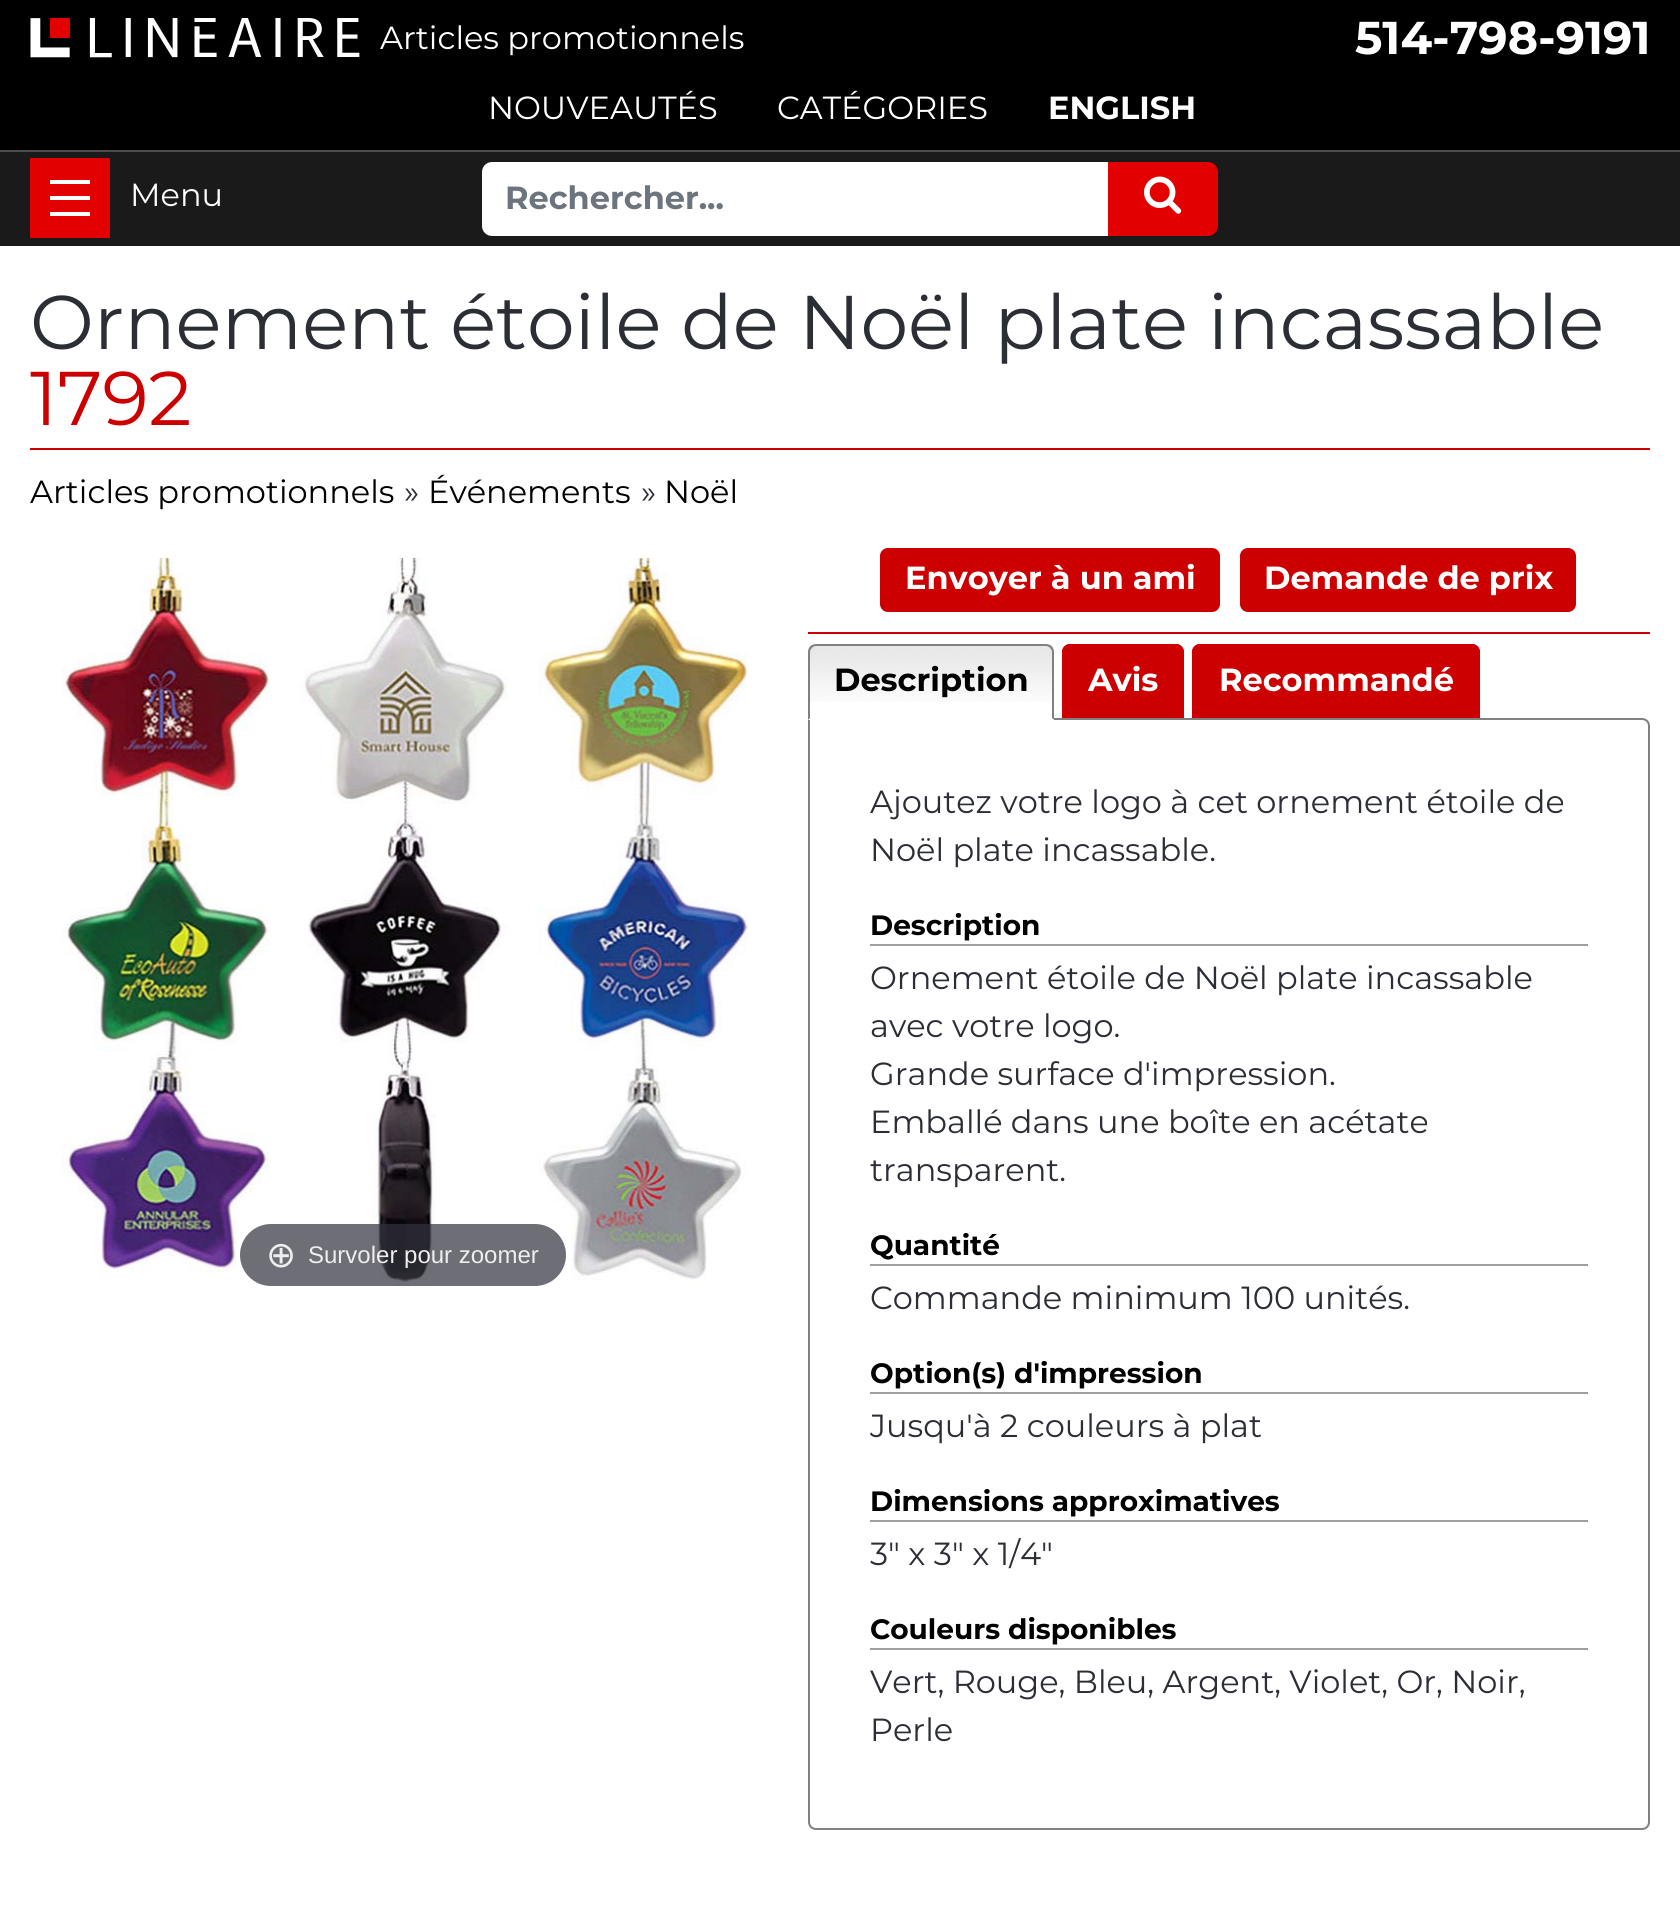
import math
import cairo

surface = cairo.ImageSurface(cairo.FORMAT_RGB24, 1680, 1907)
ctx = cairo.Context(surface)
options = cairo.FontOptions()
options.set_hint_metrics(cairo.HINT_METRICS_OFF)
options.set_hint_style(cairo.HINT_STYLE_NONE)
ctx.set_font_options(options)
ctx.set_miter_limit(4)


def round_rect(x, y, w, h, r):
    ctx.new_sub_path()
    for i, (u, v) in enumerate([(x + w - r, y + h - r), (x + r, y + h - r), (x + r, y + r), (x + w - r, y + r)]):
        ctx.arc(u, v, r, i * math.pi / 2, (i + 1) * math.pi / 2)
    ctx.close_path()


def picture(path, x, y, w, h):
    ctx.save()
    ctx.set_source_surface(cairo.ImageSurface.create_from_png(path), x, y)
    ctx.rectangle(x, y, w, h)
    ctx.fill()
    ctx.restore()


ctx.set_source_rgb(1, 1, 1)
ctx.paint()
ctx.set_source_rgb(0.102, 0.102, 0.102)
ctx.rectangle(0, 152, 1680, 94)
ctx.fill()
ctx.set_source_rgb(0, 0, 0)
ctx.rectangle(0, 0, 1680, 150)
ctx.fill()
ctx.set_source_rgb(0.302, 0.302, 0.302)
ctx.rectangle(0, 150, 1680, 2)
ctx.fill()
picture("img1.png", 30, 18, 330, 40)
ctx.select_font_face("Montserrat")
ctx.set_font_size(32)
ctx.set_source_rgb(1, 1, 1)
ctx.move_to(380, 49)
ctx.show_text("Articles promotionnels")
ctx.select_font_face("Montserrat", cairo.FONT_SLANT_NORMAL, cairo.FONT_WEIGHT_BOLD)
ctx.set_font_size(46)
ctx.move_to(1355, 54)
ctx.show_text("514-798-9191")
ctx.select_font_face("Montserrat")
ctx.set_font_size(32)
ctx.move_to(488, 119)
ctx.show_text("NOUVEAUTÉS")
ctx.move_to(777, 119)
ctx.show_text("CATÉGORIES")
ctx.select_font_face("Montserrat", cairo.FONT_SLANT_NORMAL, cairo.FONT_WEIGHT_BOLD)
ctx.move_to(1048, 119)
ctx.show_text("ENGLISH")
ctx.set_source_rgb(0.886, 0, 0)
ctx.rectangle(30, 158, 80, 80)
ctx.fill()
ctx.set_source_rgb(1, 1, 1)
ctx.rectangle(50, 196, 40, 4)
ctx.fill()
ctx.rectangle(50, 180, 40, 4)
ctx.fill()
ctx.rectangle(50, 212, 40, 4)
ctx.fill()
ctx.select_font_face("Montserrat")
ctx.move_to(130, 206)
ctx.show_text("Menu")
ctx.new_path()
ctx.move_to(492, 162)
ctx.line_to(1110, 162)
ctx.line_to(1110, 236)
ctx.line_to(492, 236)
ctx.curve_to(486.5, 236, 482, 231.5, 482, 226)
ctx.line_to(482, 172)
ctx.curve_to(482, 166.5, 486.5, 162, 492, 162)
ctx.close_path()
ctx.fill()
ctx.select_font_face("Montserrat", cairo.FONT_SLANT_NORMAL, cairo.FONT_WEIGHT_BOLD)
ctx.set_source_rgb(0.424, 0.459, 0.49)
ctx.move_to(505, 209)
ctx.show_text("Rechercher...")
ctx.set_source_rgb(0.886, 0, 0)
ctx.new_path()
ctx.move_to(1108, 162)
ctx.line_to(1208, 162)
ctx.curve_to(1213.5, 162, 1218, 166.5, 1218, 172)
ctx.line_to(1218, 226)
ctx.curve_to(1218, 231.5, 1213.5, 236, 1208, 236)
ctx.line_to(1108, 236)
ctx.close_path()
ctx.fill()
picture("img2.png", 1144, 176, 38, 38)
ctx.set_source_rgb(0.8, 0, 0)
ctx.rectangle(30, 448, 1620, 2)
ctx.fill()
ctx.select_font_face("Montserrat")
ctx.set_font_size(76)
ctx.set_source_rgb(0.173, 0.18, 0.208)
ctx.move_to(30, 349)
ctx.show_text("Ornement étoile de Noël plate incassable")
ctx.set_source_rgb(0.8, 0, 0)
ctx.move_to(30, 425)
ctx.show_text("1792")
ctx.set_font_size(32)
ctx.set_source_rgb(0, 0, 0)
ctx.move_to(30, 503)
ctx.show_text("Articles promotionnels")
ctx.set_source_rgb(0.173, 0.18, 0.208)
ctx.move_to(404, 503)
ctx.show_text("»")
ctx.set_source_rgb(0, 0, 0)
ctx.move_to(428, 503)
ctx.show_text("Événements")
ctx.set_source_rgb(0.173, 0.18, 0.208)
ctx.move_to(641, 503)
ctx.show_text("»")
ctx.set_source_rgb(0, 0, 0)
ctx.move_to(664, 503)
ctx.show_text("Noël")
ctx.set_source_rgb(0.8, 0, 0)
round_rect(880, 548, 340, 64, 8)
ctx.fill()
ctx.select_font_face("Montserrat", cairo.FONT_SLANT_NORMAL, cairo.FONT_WEIGHT_BOLD)
ctx.set_source_rgb(1, 1, 1)
ctx.move_to(905, 589)
ctx.show_text("Envoyer à un ami")
ctx.set_source_rgb(0.8, 0, 0)
round_rect(1240, 548, 336, 64, 8)
ctx.fill()
ctx.set_source_rgb(1, 1, 1)
ctx.move_to(1264, 589)
ctx.show_text("Demande de prix")
picture("img3.png", 61, 558, 688, 730)
ctx.set_source_rgba(0.192, 0.2, 0.239, 0.7)
round_rect(240, 1224, 326, 62, 31)
ctx.fill()
ctx.select_font_face("DejaVu Sans")
ctx.set_font_size(36)
ctx.set_source_rgb(0.933, 0.933, 0.933)
ctx.move_to(266, 1267)
ctx.show_text("⊕")
ctx.select_font_face("Liberation Sans")
ctx.set_font_size(24)
ctx.move_to(308, 1263)
ctx.show_text("Survoler pour zoomer")
ctx.set_source_rgb(0.8, 0, 0)
ctx.rectangle(808, 632, 842, 2)
ctx.fill()
ctx.new_path()
ctx.move_to(809, 719)
ctx.line_to(1642, 719)
ctx.curve_to(1646, 719, 1649, 722, 1649, 726)
ctx.line_to(1649, 1822)
ctx.curve_to(1649, 1826, 1646, 1829, 1642, 1829)
ctx.line_to(816, 1829)
ctx.curve_to(812, 1829, 809, 1826, 809, 1822)
ctx.close_path()
ctx.set_source_rgb(0.502, 0.502, 0.502)
ctx.stroke()
ctx.set_source_rgb(1, 1, 1)
ctx.new_path()
ctx.move_to(816, 644)
ctx.line_to(1046, 644)
ctx.curve_to(1050.5, 644, 1054, 647.5, 1054, 652)
ctx.line_to(1054, 720)
ctx.line_to(808, 720)
ctx.line_to(808, 652)
ctx.curve_to(808, 647.5, 811.5, 644, 816, 644)
ctx.close_path()
ctx.fill()
picture("img4.png", 808, 646, 246, 56)
ctx.set_source_rgb(0.502, 0.502, 0.502)
ctx.new_path()
ctx.move_to(816, 644)
ctx.curve_to(814, 644, 812, 645, 810, 646)
ctx.line_to(812, 648)
ctx.curve_to(813, 647, 814, 646, 816, 646)
ctx.line_to(1046, 646)
ctx.curve_to(1048, 646, 1049, 647, 1050, 648)
ctx.line_to(1052, 646)
ctx.curve_to(1050, 645, 1048, 644, 1046, 644)
ctx.close_path()
ctx.fill()
ctx.new_path()
ctx.move_to(1054, 720)
ctx.line_to(1054, 652)
ctx.curve_to(1054, 650, 1053, 648, 1052, 646)
ctx.line_to(1050, 648)
ctx.curve_to(1051, 649, 1052, 650, 1052, 652)
ctx.line_to(1052, 718)
ctx.close_path()
ctx.fill()
ctx.set_source_rgb(1, 1, 1)
ctx.new_path()
ctx.move_to(1054, 720)
ctx.line_to(1052, 718)
ctx.line_to(810, 718)
ctx.line_to(808, 720)
ctx.close_path()
ctx.fill()
ctx.set_source_rgb(0.502, 0.502, 0.502)
ctx.new_path()
ctx.move_to(808, 720)
ctx.line_to(810, 718)
ctx.line_to(810, 652)
ctx.curve_to(810, 650, 811, 649, 812, 648)
ctx.line_to(810, 646)
ctx.curve_to(809, 648, 808, 650, 808, 652)
ctx.close_path()
ctx.fill()
ctx.select_font_face("Montserrat", cairo.FONT_SLANT_NORMAL, cairo.FONT_WEIGHT_BOLD)
ctx.set_font_size(32)
ctx.set_source_rgb(0, 0, 0)
ctx.move_to(834, 691)
ctx.show_text("Description")
ctx.set_source_rgb(0.8, 0, 0)
ctx.new_path()
ctx.move_to(1070, 644)
ctx.line_to(1176, 644)
ctx.curve_to(1180.5, 644, 1184, 647.5, 1184, 652)
ctx.line_to(1184, 718)
ctx.line_to(1062, 718)
ctx.line_to(1062, 652)
ctx.curve_to(1062, 647.5, 1065.5, 644, 1070, 644)
ctx.close_path()
ctx.fill()
ctx.set_fill_rule(cairo.FILL_RULE_EVEN_ODD)
ctx.new_path()
ctx.move_to(1070, 644)
ctx.line_to(1176, 644)
ctx.curve_to(1180, 644, 1184, 648, 1184, 652)
ctx.line_to(1184, 718)
ctx.line_to(1062, 718)
ctx.line_to(1062, 652)
ctx.curve_to(1062, 648, 1066, 644, 1070, 644)
ctx.close_path()
ctx.move_to(1070, 646)
ctx.line_to(1176, 646)
ctx.curve_to(1179, 646, 1182, 649, 1182, 652)
ctx.line_to(1182, 718)
ctx.line_to(1064, 718)
ctx.line_to(1064, 652)
ctx.curve_to(1064, 649, 1067, 646, 1070, 646)
ctx.close_path()
ctx.fill()
ctx.set_source_rgb(1, 1, 1)
ctx.move_to(1088, 691)
ctx.show_text("Avis")
ctx.set_source_rgb(0.8, 0, 0)
ctx.new_path()
ctx.move_to(1200, 644)
ctx.line_to(1472, 644)
ctx.curve_to(1476.5, 644, 1480, 647.5, 1480, 652)
ctx.line_to(1480, 718)
ctx.line_to(1192, 718)
ctx.line_to(1192, 652)
ctx.curve_to(1192, 647.5, 1195.5, 644, 1200, 644)
ctx.close_path()
ctx.fill()
ctx.new_path()
ctx.move_to(1200, 644)
ctx.line_to(1472, 644)
ctx.curve_to(1476, 644, 1480, 648, 1480, 652)
ctx.line_to(1480, 718)
ctx.line_to(1192, 718)
ctx.line_to(1192, 652)
ctx.curve_to(1192, 648, 1196, 644, 1200, 644)
ctx.close_path()
ctx.move_to(1200, 646)
ctx.line_to(1472, 646)
ctx.curve_to(1475, 646, 1478, 649, 1478, 652)
ctx.line_to(1478, 718)
ctx.line_to(1194, 718)
ctx.line_to(1194, 652)
ctx.curve_to(1194, 649, 1197, 646, 1200, 646)
ctx.close_path()
ctx.fill()
ctx.set_source_rgb(1, 1, 1)
ctx.move_to(1219, 691)
ctx.show_text("Recommandé")
ctx.select_font_face("Montserrat")
ctx.set_source_rgb(0.173, 0.18, 0.208)
ctx.move_to(870, 813)
ctx.show_text("Ajoutez votre logo à cet ornement étoile de")
ctx.move_to(870, 861)
ctx.show_text("Noël plate incassable.")
ctx.set_source_rgb(0.624, 0.624, 0.624)
ctx.rectangle(870, 944, 718, 2)
ctx.fill()
ctx.select_font_face("Montserrat", cairo.FONT_SLANT_NORMAL, cairo.FONT_WEIGHT_BOLD)
ctx.set_font_size(28)
ctx.set_source_rgb(0, 0, 0)
ctx.move_to(870, 935)
ctx.show_text("Description")
ctx.select_font_face("Montserrat")
ctx.set_font_size(32)
ctx.set_source_rgb(0.173, 0.18, 0.208)
ctx.move_to(870, 989)
ctx.show_text("Ornement étoile de Noël plate incassable")
ctx.move_to(870, 1037)
ctx.show_text("avec votre logo.")
ctx.move_to(870, 1085)
ctx.show_text("Grande surface d'impression.")
ctx.move_to(870, 1133)
ctx.show_text("Emballé dans une boîte en acétate")
ctx.move_to(870, 1181)
ctx.show_text("transparent.")
ctx.set_source_rgb(0.624, 0.624, 0.624)
ctx.rectangle(870, 1264, 718, 2)
ctx.fill()
ctx.select_font_face("Montserrat", cairo.FONT_SLANT_NORMAL, cairo.FONT_WEIGHT_BOLD)
ctx.set_font_size(28)
ctx.set_source_rgb(0, 0, 0)
ctx.move_to(870, 1255)
ctx.show_text("Quantité")
ctx.select_font_face("Montserrat")
ctx.set_font_size(32)
ctx.set_source_rgb(0.173, 0.18, 0.208)
ctx.move_to(870, 1309)
ctx.show_text("Commande minimum 100 unités.")
ctx.set_source_rgb(0.624, 0.624, 0.624)
ctx.rectangle(870, 1392, 718, 2)
ctx.fill()
ctx.select_font_face("Montserrat", cairo.FONT_SLANT_NORMAL, cairo.FONT_WEIGHT_BOLD)
ctx.set_font_size(28)
ctx.set_source_rgb(0, 0, 0)
ctx.move_to(870, 1383)
ctx.show_text("Option(s) d'impression")
ctx.select_font_face("Montserrat")
ctx.set_font_size(32)
ctx.set_source_rgb(0.173, 0.18, 0.208)
ctx.move_to(870, 1437)
ctx.show_text("Jusqu'à 2 couleurs à plat")
ctx.set_source_rgb(0.624, 0.624, 0.624)
ctx.rectangle(870, 1520, 718, 2)
ctx.fill()
ctx.select_font_face("Montserrat", cairo.FONT_SLANT_NORMAL, cairo.FONT_WEIGHT_BOLD)
ctx.set_font_size(28)
ctx.set_source_rgb(0, 0, 0)
ctx.move_to(870, 1511)
ctx.show_text("Dimensions approximatives")
ctx.select_font_face("Montserrat")
ctx.set_font_size(32)
ctx.set_source_rgb(0.173, 0.18, 0.208)
ctx.move_to(870, 1565)
ctx.show_text("3\" x 3\" x 1/4\"")
ctx.set_source_rgb(0.624, 0.624, 0.624)
ctx.rectangle(870, 1648, 718, 2)
ctx.fill()
ctx.select_font_face("Montserrat", cairo.FONT_SLANT_NORMAL, cairo.FONT_WEIGHT_BOLD)
ctx.set_font_size(28)
ctx.set_source_rgb(0, 0, 0)
ctx.move_to(870, 1639)
ctx.show_text("Couleurs disponibles")
ctx.select_font_face("Montserrat")
ctx.set_font_size(32)
ctx.set_source_rgb(0.173, 0.18, 0.208)
ctx.move_to(870, 1693)
ctx.show_text("Vert, Rouge, Bleu, Argent, Violet, Or, Noir,")
ctx.move_to(870, 1741)
ctx.show_text("Perle")
surface.write_to_png("page.png")
